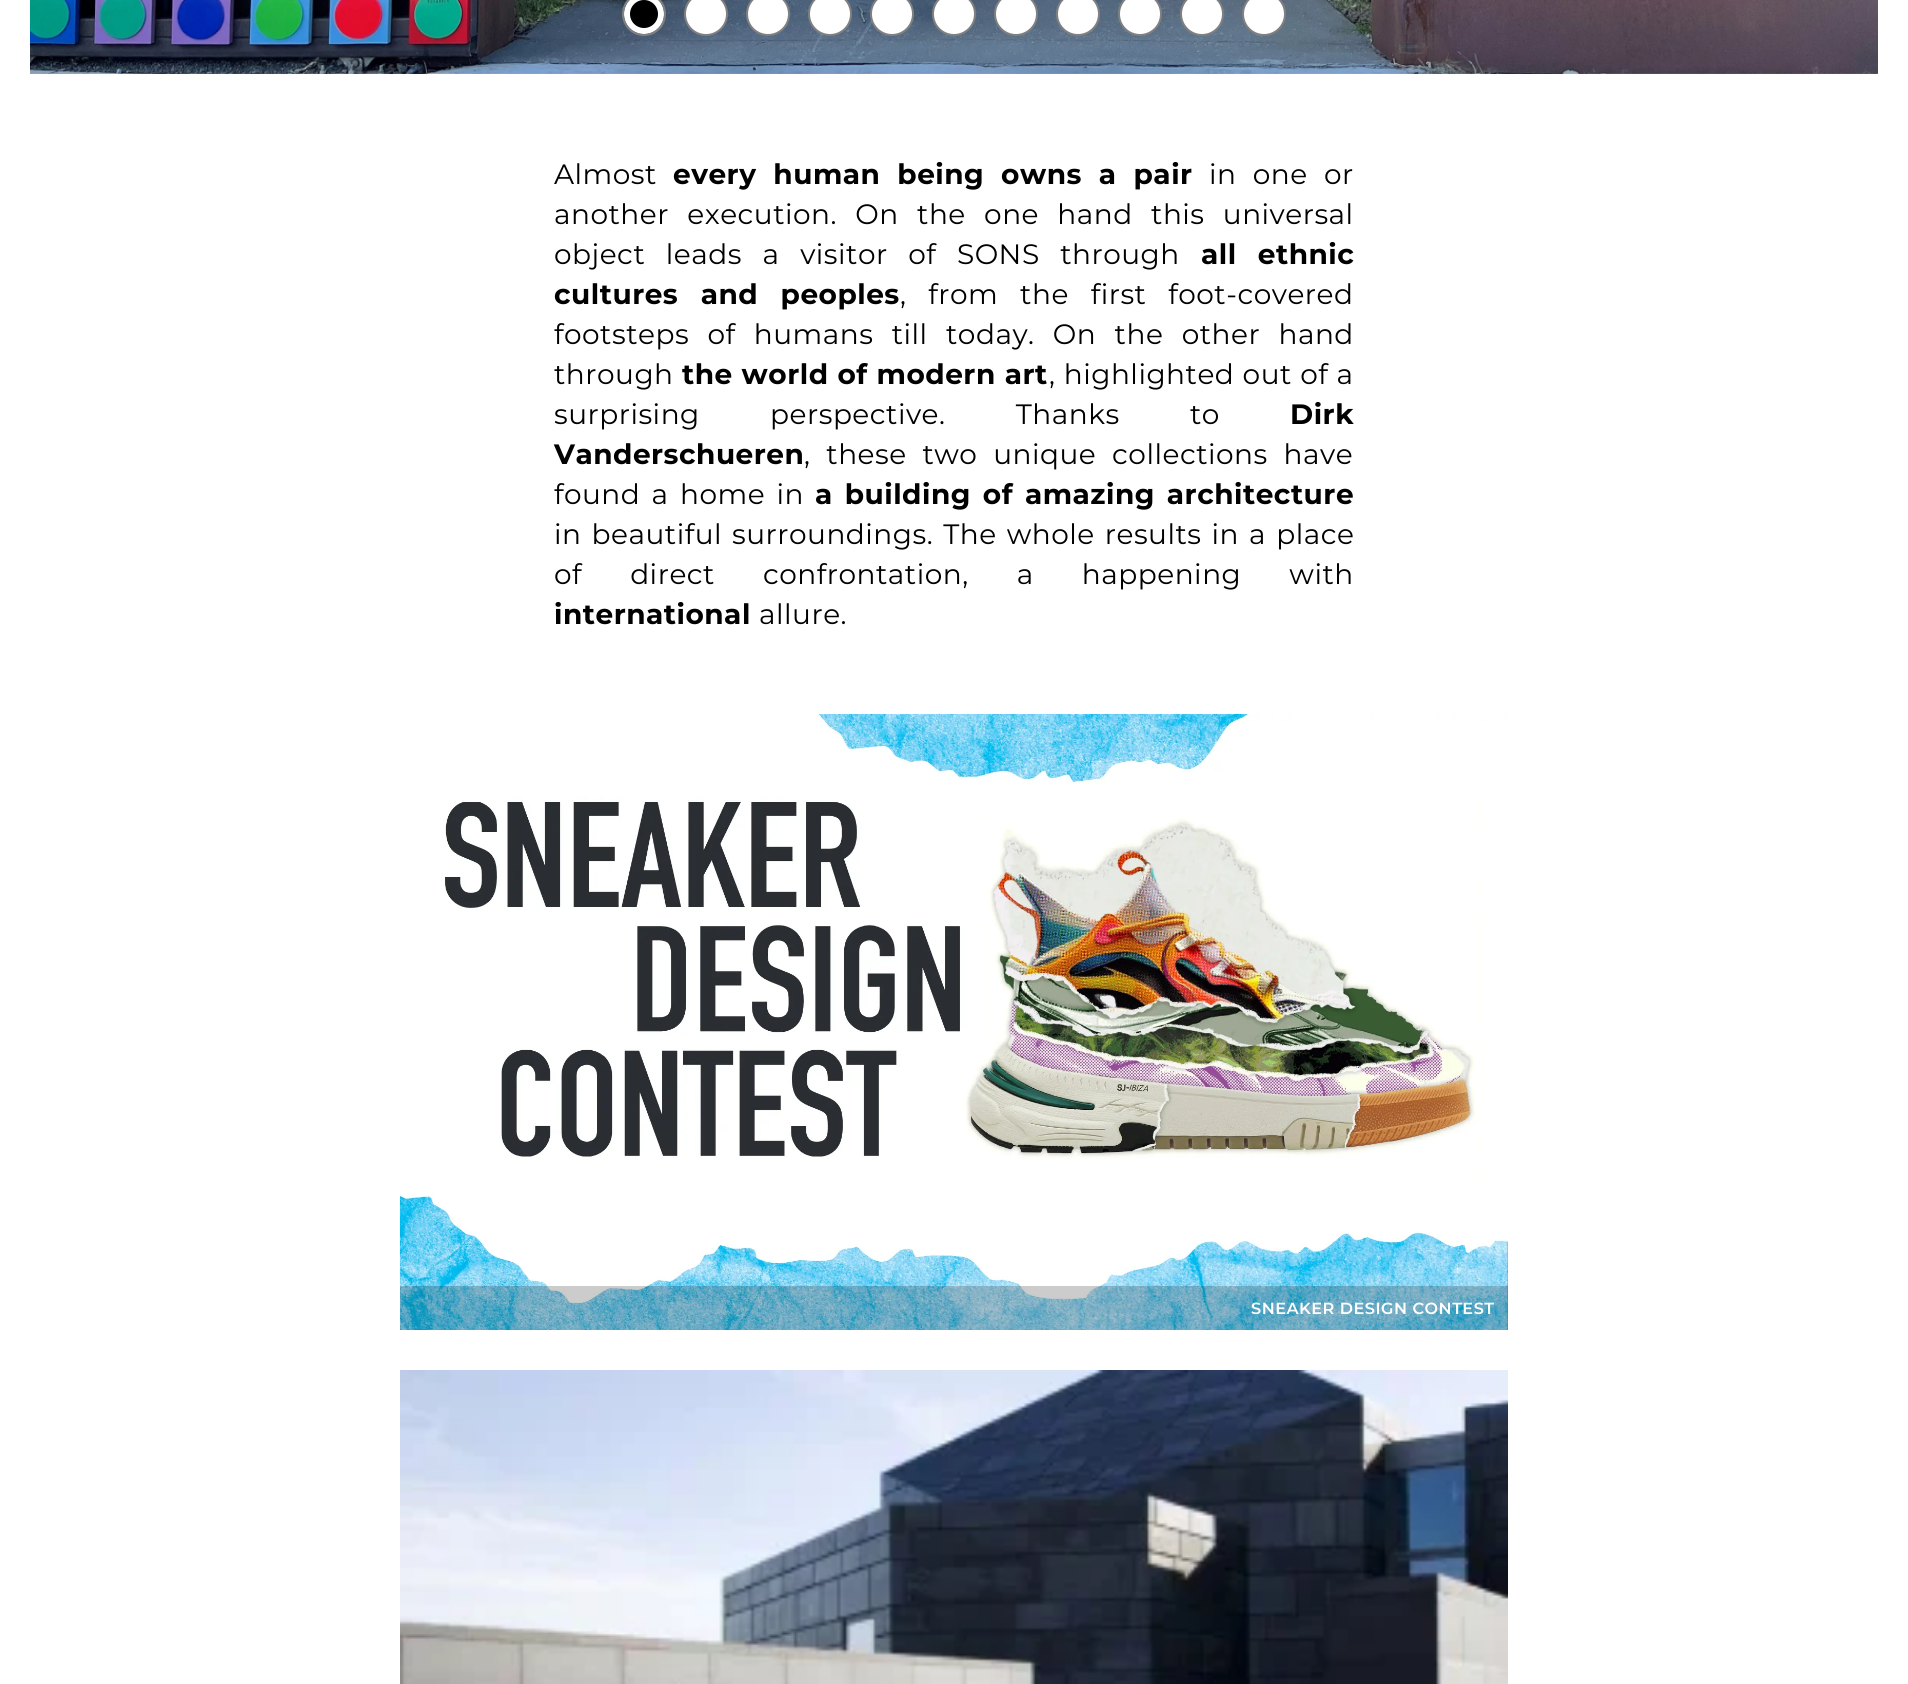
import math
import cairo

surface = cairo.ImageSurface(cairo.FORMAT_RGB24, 1908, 1684)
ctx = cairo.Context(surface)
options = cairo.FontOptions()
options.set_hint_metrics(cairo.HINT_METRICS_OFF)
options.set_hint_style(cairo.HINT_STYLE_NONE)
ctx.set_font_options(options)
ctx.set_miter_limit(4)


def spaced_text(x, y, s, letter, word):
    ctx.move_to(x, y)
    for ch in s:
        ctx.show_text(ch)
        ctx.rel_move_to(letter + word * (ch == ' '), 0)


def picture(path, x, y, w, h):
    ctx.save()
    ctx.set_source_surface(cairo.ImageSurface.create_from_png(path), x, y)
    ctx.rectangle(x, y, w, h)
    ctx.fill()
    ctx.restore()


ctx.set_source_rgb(1, 1, 1)
ctx.paint()
picture("img1.png", 30, 0, 1848, 74)
ctx.set_source_rgb(0, 0, 0)
ctx.arc(644, 14, 17, 0, 2 * math.pi)
ctx.fill_preserve()
ctx.set_source_rgb(1, 1, 1)
ctx.set_line_width(6)
ctx.stroke()
ctx.arc(644, 14, 21, 0, 2 * math.pi)
ctx.set_source_rgb(0.502, 0.502, 0.502)
ctx.set_line_width(2)
ctx.stroke()
ctx.set_source_rgb(1, 1, 1)
ctx.arc(706, 14, 21, 0, 2 * math.pi)
ctx.fill_preserve()
ctx.set_source_rgb(0.502, 0.502, 0.502)
ctx.stroke()
ctx.set_source_rgb(1, 1, 1)
ctx.arc(768, 14, 21, 0, 2 * math.pi)
ctx.fill_preserve()
ctx.set_source_rgb(0.502, 0.502, 0.502)
ctx.stroke()
ctx.set_source_rgb(1, 1, 1)
ctx.arc(830, 14, 21, 0, 2 * math.pi)
ctx.fill_preserve()
ctx.set_source_rgb(0.502, 0.502, 0.502)
ctx.stroke()
ctx.set_source_rgb(1, 1, 1)
ctx.arc(892, 14, 21, 0, 2 * math.pi)
ctx.fill_preserve()
ctx.set_source_rgb(0.502, 0.502, 0.502)
ctx.stroke()
ctx.set_source_rgb(1, 1, 1)
ctx.arc(954, 14, 21, 0, 2 * math.pi)
ctx.fill_preserve()
ctx.set_source_rgb(0.502, 0.502, 0.502)
ctx.stroke()
ctx.set_source_rgb(1, 1, 1)
ctx.arc(1016, 14, 21, 0, 2 * math.pi)
ctx.fill_preserve()
ctx.set_source_rgb(0.502, 0.502, 0.502)
ctx.stroke()
ctx.set_source_rgb(1, 1, 1)
ctx.arc(1078, 14, 21, 0, 2 * math.pi)
ctx.fill_preserve()
ctx.set_source_rgb(0.502, 0.502, 0.502)
ctx.stroke()
ctx.set_source_rgb(1, 1, 1)
ctx.arc(1140, 14, 21, 0, 2 * math.pi)
ctx.fill_preserve()
ctx.set_source_rgb(0.502, 0.502, 0.502)
ctx.stroke()
ctx.set_source_rgb(1, 1, 1)
ctx.arc(1202, 14, 21, 0, 2 * math.pi)
ctx.fill_preserve()
ctx.set_source_rgb(0.502, 0.502, 0.502)
ctx.stroke()
ctx.set_source_rgb(1, 1, 1)
ctx.arc(1264, 14, 21, 0, 2 * math.pi)
ctx.fill_preserve()
ctx.set_source_rgb(0.502, 0.502, 0.502)
ctx.stroke()
ctx.select_font_face("Montserrat")
ctx.set_font_size(28)
ctx.set_source_rgb(0, 0, 0)
spaced_text(554, 184, "Almost", 0.5, 0)
ctx.select_font_face("Montserrat", cairo.FONT_SLANT_NORMAL, cairo.FONT_WEIGHT_BOLD)
spaced_text(673, 184, "every human being owns a pair", 0.5, 8.5)
ctx.select_font_face("Montserrat")
spaced_text(1209, 184, "in one or", 0.5, 8.5)
spaced_text(554, 224, "another execution. On the one hand this universal", 0.5, 10.5)
spaced_text(554, 264, "object leads a visitor of SONS through", 0.5, 12.75)
ctx.select_font_face("Montserrat", cairo.FONT_SLANT_NORMAL, cairo.FONT_WEIGHT_BOLD)
spaced_text(1201, 264, "all ethnic", 0.5, 12.75)
spaced_text(554, 304, "cultures and peoples", 0.5, 14)
ctx.select_font_face("Montserrat")
spaced_text(900, 304, ", from the first foot-covered", 0.5, 14)
spaced_text(554, 344, "footsteps of humans till today. On the other hand", 0.5, 10.5)
spaced_text(554, 384, "through", 0.5, 0)
ctx.select_font_face("Montserrat", cairo.FONT_SLANT_NORMAL, cairo.FONT_WEIGHT_BOLD)
spaced_text(682, 384, "the world of modern art", 0.5, 0.5)
ctx.select_font_face("Montserrat")
spaced_text(1049, 384, ", highlighted out of a", 0.5, 0.5)
spaced_text(554, 424, "surprising perspective. Thanks to", 0.5, 62.5)
ctx.select_font_face("Montserrat", cairo.FONT_SLANT_NORMAL, cairo.FONT_WEIGHT_BOLD)
spaced_text(1290, 424, "Dirk", 0.5, 0)
spaced_text(554, 464, "Vanderschueren", 0.5, 0)
ctx.select_font_face("Montserrat")
spaced_text(804, 464, ", these two unique collections have", 0.5, 8)
spaced_text(554, 504, "found a home in", 0.5, 3.5)
ctx.select_font_face("Montserrat", cairo.FONT_SLANT_NORMAL, cairo.FONT_WEIGHT_BOLD)
spaced_text(815, 504, "a building of amazing architecture", 0.5, 3.5)
ctx.select_font_face("Montserrat")
spaced_text(554, 544, "in beautiful surroundings. The whole results in a place", 0.5, 2.25)
spaced_text(554, 584, "of direct confrontation, a happening with", 0.5, 40.25)
ctx.select_font_face("Montserrat", cairo.FONT_SLANT_NORMAL, cairo.FONT_WEIGHT_BOLD)
spaced_text(554, 624, "international", 0.5, 0)
ctx.select_font_face("Montserrat")
spaced_text(759, 624, "allure.", 0.5, 0)
picture("img2.png", 400, 714, 1108, 616)
ctx.set_source_rgba(0, 0, 0, 0.2)
ctx.rectangle(400, 1286, 1108, 44)
ctx.fill()
ctx.select_font_face("Montserrat SemiBold")
ctx.set_font_size(16.1)
ctx.set_source_rgb(1, 1, 1)
spaced_text(1251, 1314, "SNEAKER DESIGN CONTEST", 0.5, 0)
picture("img3.png", 400, 1370, 1108, 314)
surface.write_to_png("page.png")
